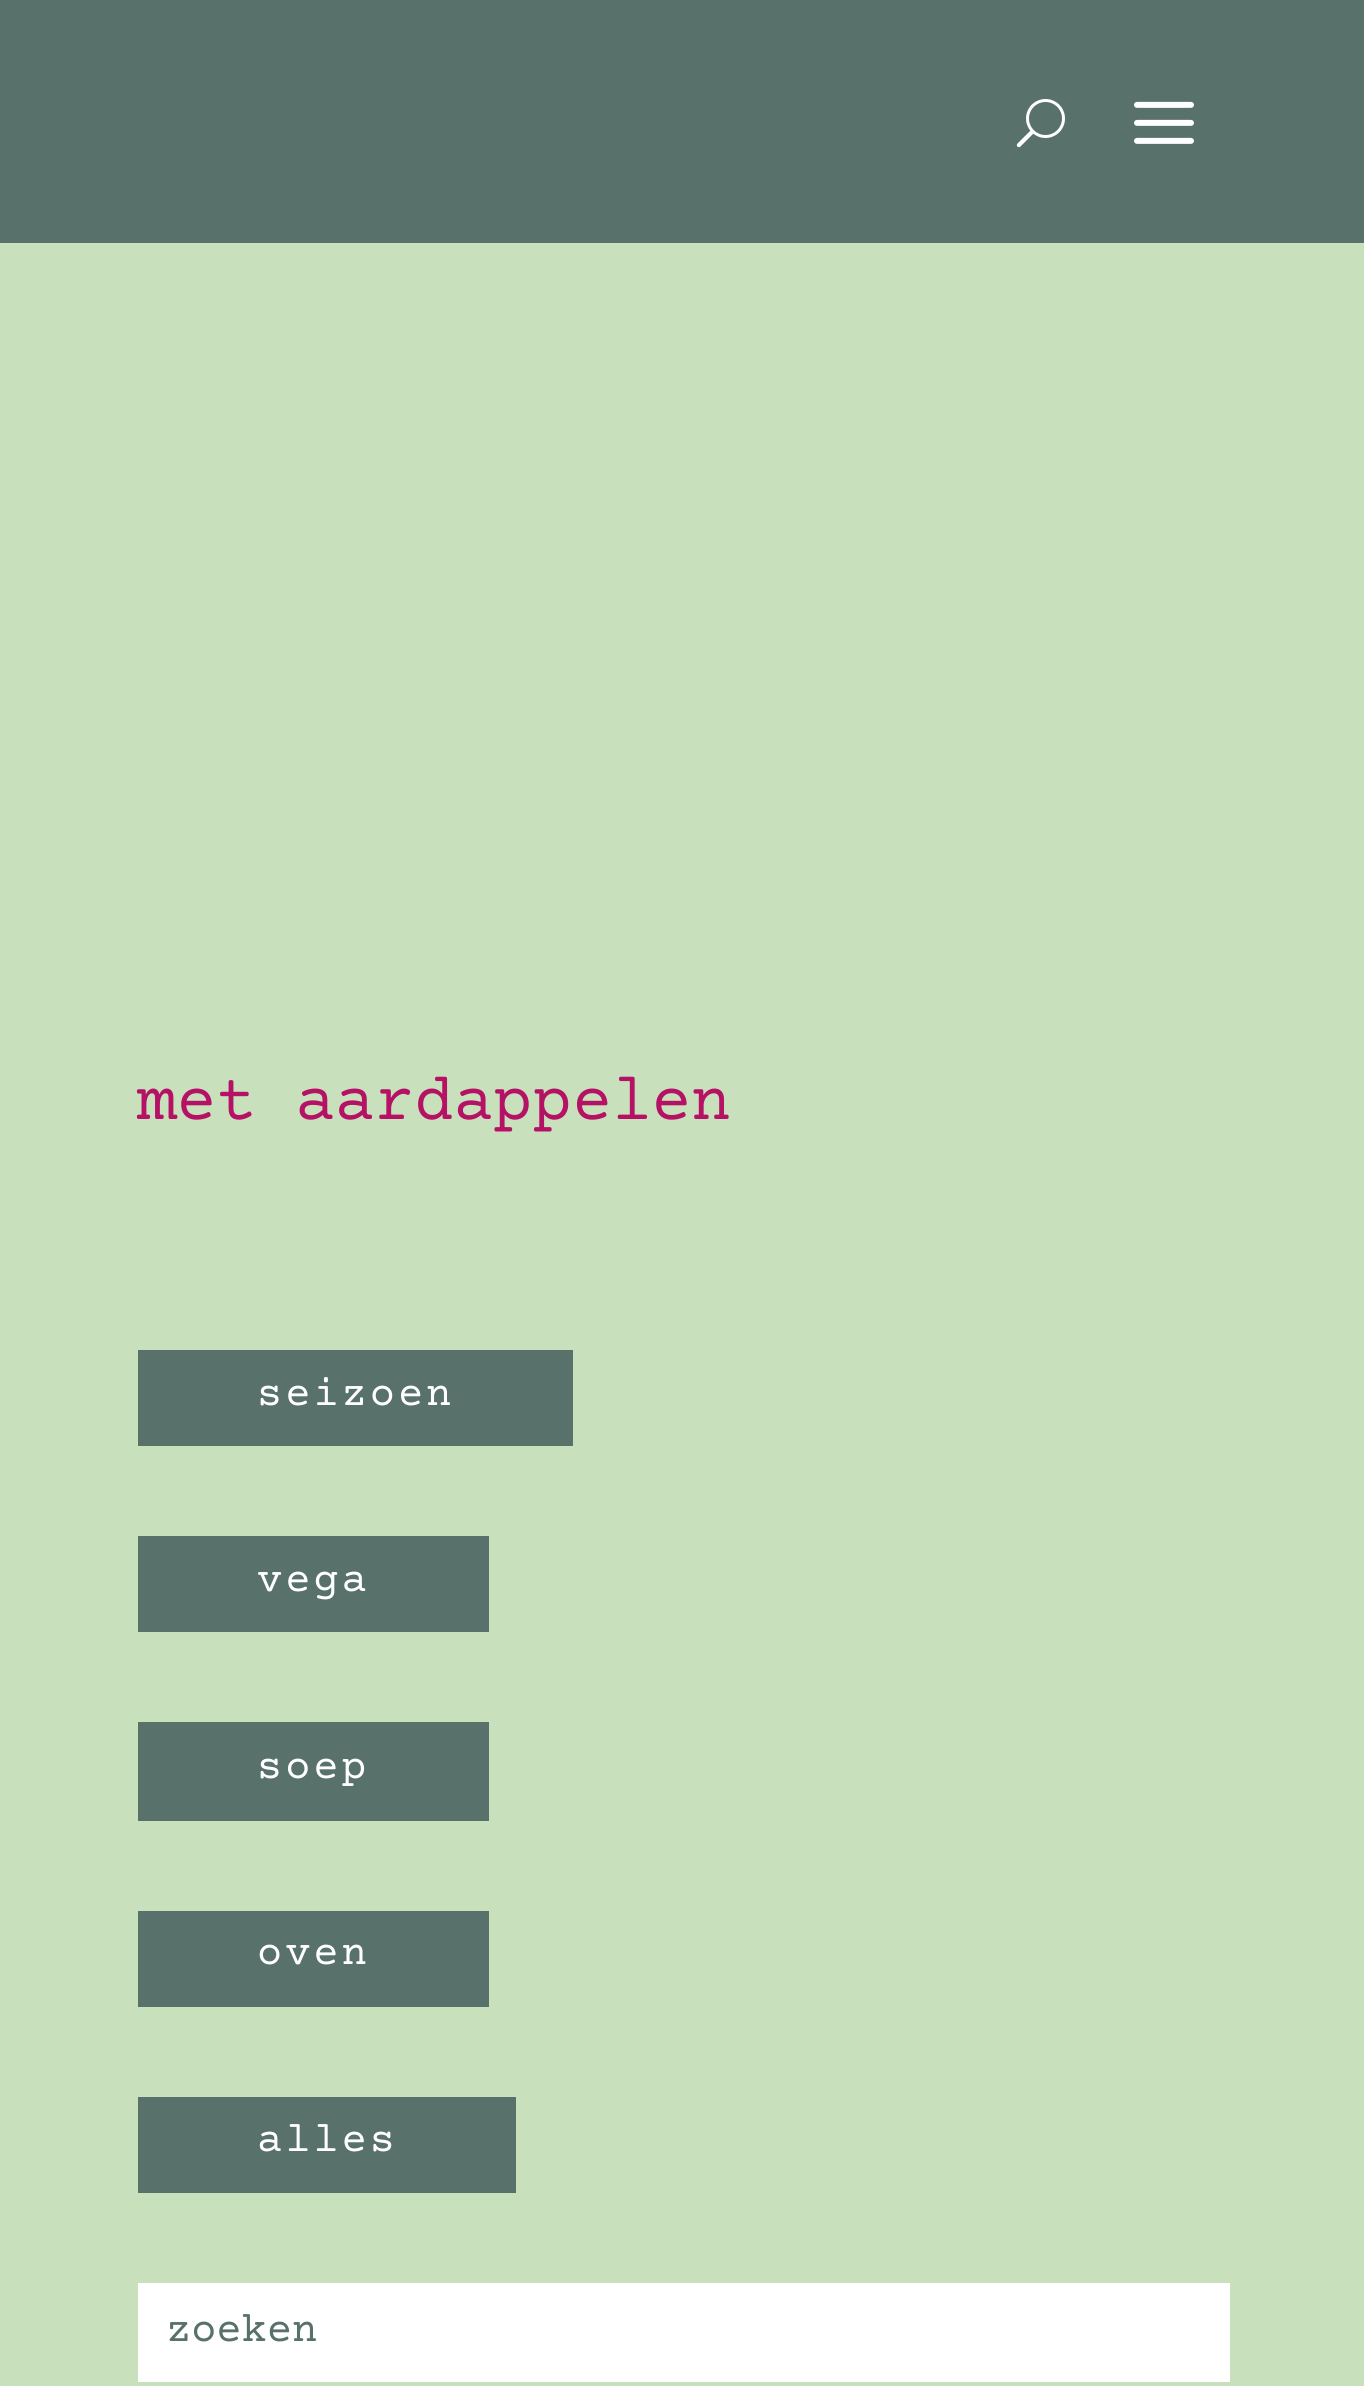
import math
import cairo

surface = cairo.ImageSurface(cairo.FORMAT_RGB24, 1364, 2386)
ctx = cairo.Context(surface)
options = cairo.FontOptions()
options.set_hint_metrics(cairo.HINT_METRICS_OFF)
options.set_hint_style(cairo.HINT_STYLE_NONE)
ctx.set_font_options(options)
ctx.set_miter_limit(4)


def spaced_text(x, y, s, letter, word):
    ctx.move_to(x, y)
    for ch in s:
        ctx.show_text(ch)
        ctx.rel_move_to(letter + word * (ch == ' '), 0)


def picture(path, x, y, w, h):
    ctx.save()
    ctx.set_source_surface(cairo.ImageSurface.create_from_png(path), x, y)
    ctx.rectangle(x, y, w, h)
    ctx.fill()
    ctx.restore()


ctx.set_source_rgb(0.784, 0.882, 0.737)
ctx.paint()
ctx.set_source_rgb(0.345, 0.443, 0.42)
ctx.rectangle(0, 0, 1364, 243)
ctx.fill()
picture("img1.png", 1016, 99, 49, 49)
picture("img2.png", 1134, 101, 60, 43)
ctx.select_font_face("Courier Prime")
ctx.set_font_size(66)
ctx.set_source_rgb(0.71, 0.067, 0.396)
ctx.move_to(137, 1119)
ctx.show_text("met aardappelen")
ctx.set_source_rgb(0.345, 0.443, 0.42)
ctx.rectangle(138, 1350, 435, 96)
ctx.fill()
ctx.set_font_size(42)
ctx.set_source_rgb(1, 1, 1)
spaced_text(257, 1405, "seizoen", 3, 0)
ctx.set_source_rgb(0.345, 0.443, 0.42)
ctx.rectangle(138, 1536, 351, 96)
ctx.fill()
ctx.set_source_rgb(1, 1, 1)
spaced_text(257, 1591, "vega", 3, 0)
ctx.set_source_rgb(0.345, 0.443, 0.42)
ctx.rectangle(138, 1722, 351, 99)
ctx.fill()
ctx.set_source_rgb(1, 1, 1)
spaced_text(257, 1778, "soep", 3, 0)
ctx.set_source_rgb(0.345, 0.443, 0.42)
ctx.rectangle(138, 1911, 351, 96)
ctx.fill()
ctx.set_source_rgb(1, 1, 1)
spaced_text(257, 1964, "oven", 3, 0)
ctx.set_source_rgb(0.345, 0.443, 0.42)
ctx.rectangle(138, 2097, 378, 96)
ctx.fill()
ctx.set_source_rgb(1, 1, 1)
spaced_text(257, 2151, "alles", 3, 0)
ctx.rectangle(138, 2283, 1092, 99)
ctx.fill()
ctx.set_source_rgb(0.345, 0.443, 0.42)
ctx.move_to(166, 2341)
ctx.show_text("zoeken")
surface.write_to_png("page.png")
